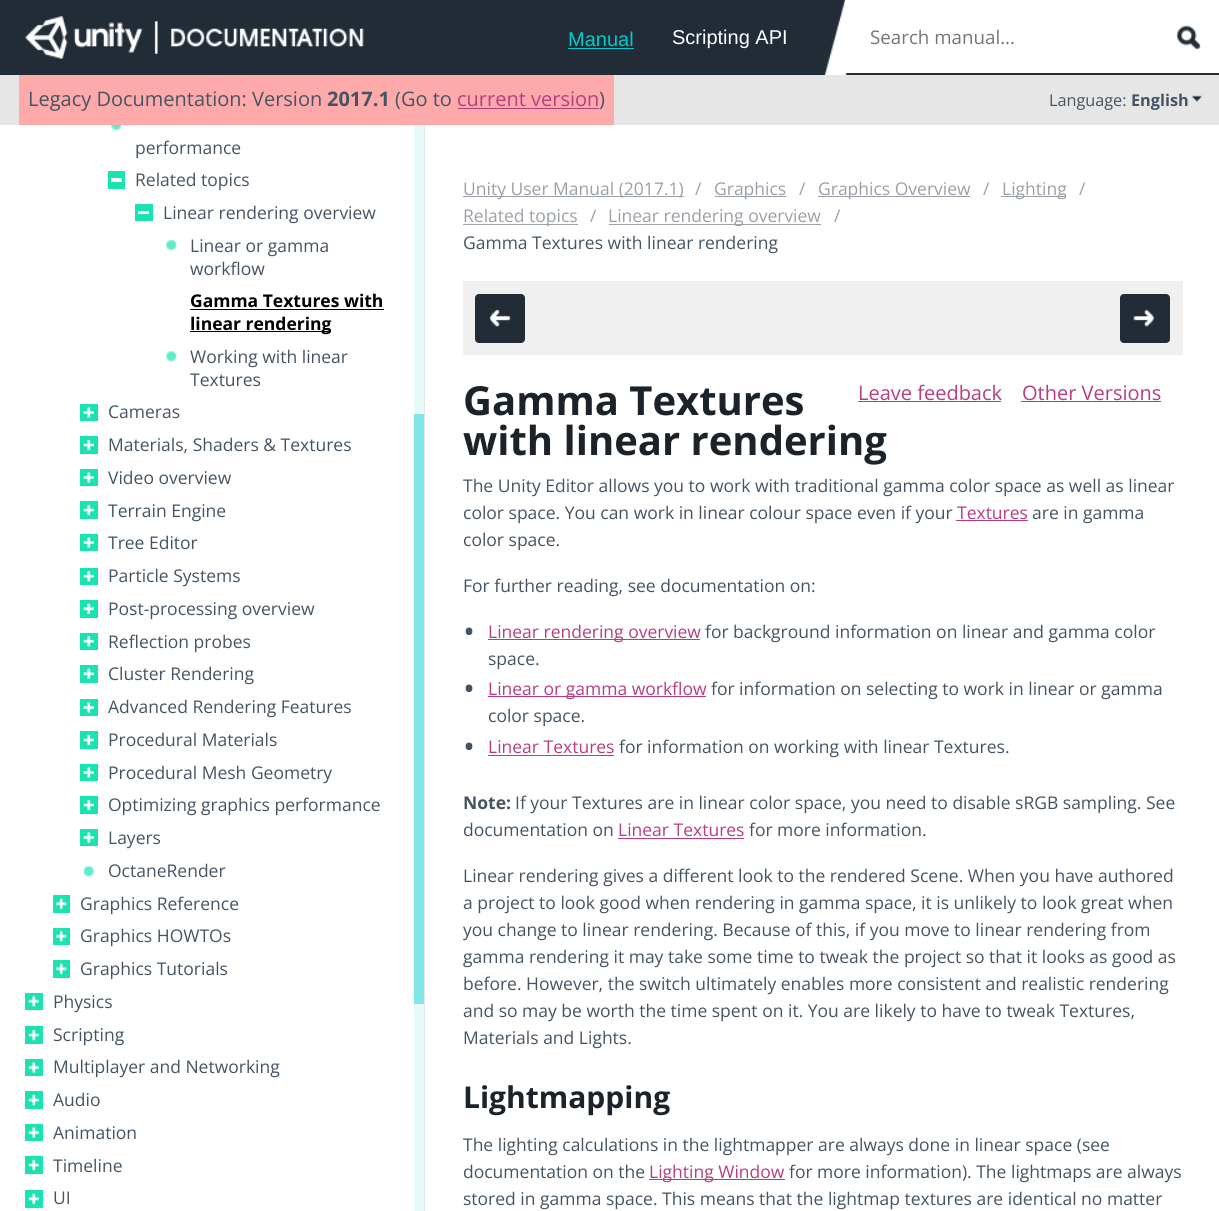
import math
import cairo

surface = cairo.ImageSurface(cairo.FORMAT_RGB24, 1219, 1211)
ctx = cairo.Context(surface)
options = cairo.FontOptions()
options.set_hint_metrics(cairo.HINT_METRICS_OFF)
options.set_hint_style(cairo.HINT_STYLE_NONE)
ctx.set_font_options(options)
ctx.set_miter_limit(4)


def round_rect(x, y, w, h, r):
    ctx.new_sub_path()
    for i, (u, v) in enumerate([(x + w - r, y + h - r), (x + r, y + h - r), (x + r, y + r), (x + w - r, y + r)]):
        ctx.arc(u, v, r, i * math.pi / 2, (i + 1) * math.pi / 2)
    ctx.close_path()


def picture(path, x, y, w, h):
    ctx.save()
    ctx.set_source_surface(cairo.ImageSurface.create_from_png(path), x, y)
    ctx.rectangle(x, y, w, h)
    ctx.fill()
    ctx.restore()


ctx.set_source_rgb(1, 1, 1)
ctx.paint()
ctx.set_source_rgb(0.133, 0.173, 0.216)
ctx.rectangle(0, 0, 1219, 75)
ctx.fill()
picture("img1.png", 25, 16, 339, 43)
ctx.select_font_face("Liberation Sans")
ctx.set_font_size(20)
ctx.set_source_rgb(0, 0.8, 0.8)
ctx.move_to(568, 46)
ctx.show_text("Manual")
ctx.rectangle(568, 48, 66, 1)
ctx.fill()
ctx.set_source_rgb(1, 1, 1)
ctx.move_to(672, 44)
ctx.show_text("Scripting API")
ctx.rectangle(845, 0, 374, 73)
ctx.fill()
picture("img2.png", 824, 0, 23, 75)
ctx.select_font_face("Open Sans")
ctx.set_font_size(18.75)
ctx.set_source_rgb(0.459, 0.459, 0.459)
ctx.move_to(870, 44)
ctx.show_text("Search manual...")
picture("img3.png", 1176, 25, 25, 25)
ctx.set_source_rgb(0.902, 0.902, 0.902)
ctx.rectangle(0, 75, 1219, 50)
ctx.fill()
ctx.set_source_rgb(1, 0.667, 0.667)
ctx.rectangle(19, 75, 595, 50)
ctx.fill()
ctx.set_font_size(20)
ctx.set_source_rgb(0.271, 0.329, 0.388)
ctx.move_to(28, 106)
ctx.show_text("Legacy Documentation: Version")
ctx.select_font_face("Open Sans", cairo.FONT_SLANT_NORMAL, cairo.FONT_WEIGHT_BOLD)
ctx.move_to(327, 106)
ctx.show_text("2017.1")
ctx.select_font_face("Open Sans")
ctx.move_to(395, 106)
ctx.show_text("(Go to")
ctx.set_source_rgb(0.722, 0.235, 0.51)
ctx.move_to(457, 106)
ctx.show_text("current version")
ctx.rectangle(458, 108, 141, 1)
ctx.fill()
ctx.set_source_rgb(0.271, 0.329, 0.388)
ctx.move_to(599, 106)
ctx.show_text(")")
ctx.set_font_size(16.25)
ctx.move_to(1049, 106)
ctx.show_text("Language:")
ctx.select_font_face("Open Sans", cairo.FONT_SLANT_NORMAL, cairo.FONT_WEIGHT_BOLD)
ctx.move_to(1131, 106)
ctx.show_text("English")
picture("img4.png", 1192, 95, 10, 7)
ctx.set_source_rgb(0.902, 0.902, 0.902)
ctx.rectangle(424, 125, 1, 1086)
ctx.fill()
picture("img5.png", 111, 125, 11, 6)
ctx.select_font_face("Open Sans")
ctx.set_font_size(17.5)
ctx.set_source_rgb(0.271, 0.329, 0.388)
ctx.move_to(135, 154)
ctx.show_text("performance")
ctx.set_source_rgb(0.098, 0.89, 0.694)
ctx.rectangle(108, 171, 17, 18)
ctx.fill()
ctx.set_source_rgb(1, 1, 1)
ctx.rectangle(111, 178, 11, 4)
ctx.fill()
ctx.set_source_rgb(0.271, 0.329, 0.388)
ctx.move_to(135, 186)
ctx.show_text("Related topics")
ctx.set_source_rgb(0.098, 0.89, 0.694)
ctx.rectangle(135, 204, 18, 17)
ctx.fill()
ctx.set_source_rgb(1, 1, 1)
ctx.rectangle(138, 211, 11, 3)
ctx.fill()
ctx.set_source_rgb(0.271, 0.329, 0.388)
ctx.move_to(163, 219)
ctx.show_text("Linear rendering overview")
picture("img6.png", 166, 239, 11, 12)
ctx.move_to(190, 252)
ctx.show_text("Linear or gamma")
ctx.move_to(190, 275)
ctx.show_text("workflow")
ctx.select_font_face("Open Sans", cairo.FONT_SLANT_NORMAL, cairo.FONT_WEIGHT_BOLD)
ctx.set_source_rgb(0, 0, 0)
ctx.move_to(190, 307)
ctx.show_text("Gamma Textures with")
ctx.rectangle(190, 309, 194, 1)
ctx.fill()
ctx.rectangle(190, 331, 141, 1)
ctx.fill()
ctx.move_to(190, 330)
ctx.show_text("linear rendering")
picture("img7.png", 166, 351, 11, 11)
ctx.select_font_face("Open Sans")
ctx.set_source_rgb(0.271, 0.329, 0.388)
ctx.move_to(190, 363)
ctx.show_text("Working with linear")
ctx.move_to(190, 386)
ctx.show_text("Textures")
ctx.set_source_rgb(0.098, 0.89, 0.694)
ctx.rectangle(80, 404, 18, 17)
ctx.fill()
picture("img8.png", 83, 407, 11, 11)
ctx.set_source_rgb(0.271, 0.329, 0.388)
ctx.move_to(108, 418)
ctx.show_text("Cameras")
ctx.set_source_rgb(0.098, 0.89, 0.694)
ctx.rectangle(80, 436, 18, 18)
ctx.fill()
picture("img9.png", 83, 439, 11, 12)
ctx.set_source_rgb(0.271, 0.329, 0.388)
ctx.move_to(108, 451)
ctx.show_text("Materials, Shaders & Textures")
ctx.set_source_rgb(0.098, 0.89, 0.694)
ctx.rectangle(80, 469, 18, 17)
ctx.fill()
picture("img8.png", 83, 472, 11, 11)
ctx.set_source_rgb(0.271, 0.329, 0.388)
ctx.move_to(108, 484)
ctx.show_text("Video overview")
ctx.set_source_rgb(0.098, 0.89, 0.694)
ctx.rectangle(80, 501, 18, 18)
ctx.fill()
picture("img9.png", 83, 504, 11, 12)
ctx.set_source_rgb(0.271, 0.329, 0.388)
ctx.move_to(108, 517)
ctx.show_text("Terrain Engine")
ctx.set_source_rgb(0.098, 0.89, 0.694)
ctx.rectangle(80, 534, 18, 17)
ctx.fill()
picture("img8.png", 83, 537, 11, 11)
ctx.set_source_rgb(0.271, 0.329, 0.388)
ctx.move_to(108, 549)
ctx.show_text("Tree Editor")
ctx.set_source_rgb(0.098, 0.89, 0.694)
ctx.rectangle(80, 568, 18, 17)
ctx.fill()
picture("img10.png", 83, 571, 11, 11)
ctx.set_source_rgb(0.271, 0.329, 0.388)
ctx.move_to(108, 582)
ctx.show_text("Particle Systems")
ctx.set_source_rgb(0.098, 0.89, 0.694)
ctx.rectangle(80, 600, 18, 18)
ctx.fill()
picture("img11.png", 83, 603, 11, 11)
ctx.set_source_rgb(0.271, 0.329, 0.388)
ctx.move_to(108, 615)
ctx.show_text("Post-processing overview")
ctx.set_source_rgb(0.098, 0.89, 0.694)
ctx.rectangle(80, 633, 18, 17)
ctx.fill()
picture("img10.png", 83, 636, 11, 11)
ctx.set_source_rgb(0.271, 0.329, 0.388)
ctx.move_to(108, 648)
ctx.show_text("Reflection probes")
ctx.set_source_rgb(0.098, 0.89, 0.694)
ctx.rectangle(80, 665, 18, 18)
ctx.fill()
picture("img11.png", 83, 668, 11, 11)
ctx.set_source_rgb(0.271, 0.329, 0.388)
ctx.move_to(108, 680)
ctx.show_text("Cluster Rendering")
ctx.set_source_rgb(0.098, 0.89, 0.694)
ctx.rectangle(80, 699, 18, 17)
ctx.fill()
picture("img8.png", 83, 702, 11, 11)
ctx.set_source_rgb(0.271, 0.329, 0.388)
ctx.move_to(108, 713)
ctx.show_text("Advanced Rendering Features")
ctx.set_source_rgb(0.098, 0.89, 0.694)
ctx.rectangle(80, 731, 18, 18)
ctx.fill()
picture("img9.png", 83, 734, 11, 12)
ctx.set_source_rgb(0.271, 0.329, 0.388)
ctx.move_to(108, 746)
ctx.show_text("Procedural Materials")
ctx.set_source_rgb(0.098, 0.89, 0.694)
ctx.rectangle(80, 764, 18, 17)
ctx.fill()
picture("img8.png", 83, 767, 11, 11)
ctx.set_source_rgb(0.271, 0.329, 0.388)
ctx.move_to(108, 779)
ctx.show_text("Procedural Mesh Geometry")
ctx.set_source_rgb(0.098, 0.89, 0.694)
ctx.rectangle(80, 796, 18, 18)
ctx.fill()
picture("img9.png", 83, 799, 11, 12)
ctx.set_source_rgb(0.271, 0.329, 0.388)
ctx.move_to(108, 811)
ctx.show_text("Optimizing graphics performance")
ctx.set_source_rgb(0.098, 0.89, 0.694)
ctx.rectangle(80, 829, 18, 17)
ctx.fill()
picture("img8.png", 83, 832, 11, 11)
ctx.set_source_rgb(0.271, 0.329, 0.388)
ctx.move_to(108, 844)
ctx.show_text("Layers")
picture("img12.png", 83, 866, 11, 11)
ctx.move_to(108, 877)
ctx.show_text("OctaneRender")
ctx.set_source_rgb(0.098, 0.89, 0.694)
ctx.rectangle(53, 895, 17, 18)
ctx.fill()
picture("img13.png", 56, 898, 11, 12)
ctx.set_source_rgb(0.271, 0.329, 0.388)
ctx.move_to(80, 910)
ctx.show_text("Graphics Reference")
ctx.set_source_rgb(0.098, 0.89, 0.694)
ctx.rectangle(53, 928, 17, 17)
ctx.fill()
picture("img14.png", 56, 930, 11, 12)
ctx.set_source_rgb(0.271, 0.329, 0.388)
ctx.move_to(80, 942)
ctx.show_text("Graphics HOWTOs")
ctx.set_source_rgb(0.098, 0.89, 0.694)
ctx.rectangle(53, 960, 17, 18)
ctx.fill()
picture("img13.png", 56, 963, 11, 12)
ctx.set_source_rgb(0.271, 0.329, 0.388)
ctx.move_to(80, 975)
ctx.show_text("Graphics Tutorials")
ctx.set_source_rgb(0.098, 0.89, 0.694)
ctx.rectangle(25, 993, 18, 17)
ctx.fill()
picture("img15.png", 28, 995, 11, 12)
ctx.set_source_rgb(0.271, 0.329, 0.388)
ctx.move_to(53, 1008)
ctx.show_text("Physics")
ctx.set_source_rgb(0.098, 0.89, 0.694)
ctx.rectangle(25, 1026, 18, 18)
ctx.fill()
picture("img16.png", 28, 1029, 11, 12)
ctx.set_source_rgb(0.271, 0.329, 0.388)
ctx.move_to(53, 1041)
ctx.show_text("Scripting")
ctx.set_source_rgb(0.098, 0.89, 0.694)
ctx.rectangle(25, 1059, 18, 17)
ctx.fill()
picture("img17.png", 28, 1061, 11, 12)
ctx.set_source_rgb(0.271, 0.329, 0.388)
ctx.move_to(53, 1073)
ctx.show_text("Multiplayer and Networking")
ctx.set_source_rgb(0.098, 0.89, 0.694)
ctx.rectangle(25, 1091, 18, 18)
ctx.fill()
picture("img16.png", 28, 1094, 11, 12)
ctx.set_source_rgb(0.271, 0.329, 0.388)
ctx.move_to(53, 1106)
ctx.show_text("Audio")
ctx.set_source_rgb(0.098, 0.89, 0.694)
ctx.rectangle(25, 1124, 18, 17)
ctx.fill()
picture("img17.png", 28, 1126, 11, 12)
ctx.set_source_rgb(0.271, 0.329, 0.388)
ctx.move_to(53, 1139)
ctx.show_text("Animation")
ctx.set_source_rgb(0.098, 0.89, 0.694)
ctx.rectangle(25, 1156, 18, 18)
ctx.fill()
picture("img16.png", 28, 1159, 11, 12)
ctx.set_source_rgb(0.271, 0.329, 0.388)
ctx.move_to(53, 1172)
ctx.show_text("Timeline")
ctx.set_source_rgb(0.098, 0.89, 0.694)
ctx.rectangle(25, 1190, 18, 18)
ctx.fill()
picture("img18.png", 28, 1193, 11, 12)
ctx.set_source_rgb(0.271, 0.329, 0.388)
ctx.move_to(53, 1204)
ctx.show_text("UI")
ctx.set_source_rgb(0.902, 0.98, 0.98)
ctx.rectangle(414, 125, 10, 1086)
ctx.fill()
ctx.set_source_rgb(0.502, 0.902, 0.902)
ctx.rectangle(414, 414, 10, 590)
ctx.fill()
ctx.set_source_rgb(0.6, 0.627, 0.655)
ctx.rectangle(463, 196, 221, 1)
ctx.fill()
ctx.move_to(463, 195)
ctx.show_text("Unity User Manual (2017.1)")
ctx.move_to(695, 195)
ctx.show_text("/")
ctx.rectangle(715, 196, 71, 1)
ctx.fill()
ctx.move_to(714, 195)
ctx.show_text("Graphics")
ctx.move_to(799, 195)
ctx.show_text("/")
ctx.rectangle(818, 196, 152, 1)
ctx.fill()
ctx.move_to(818, 195)
ctx.show_text("Graphics Overview")
ctx.move_to(983, 195)
ctx.show_text("/")
ctx.rectangle(1001, 196, 65, 1)
ctx.fill()
ctx.move_to(1002, 195)
ctx.show_text("Lighting")
ctx.move_to(1079, 195)
ctx.show_text("/")
ctx.rectangle(463, 224, 115, 1)
ctx.fill()
ctx.move_to(463, 222)
ctx.show_text("Related topics")
ctx.move_to(590, 222)
ctx.show_text("/")
ctx.rectangle(609, 224, 212, 1)
ctx.fill()
ctx.move_to(608, 222)
ctx.show_text("Linear rendering overview")
ctx.move_to(834, 222)
ctx.show_text("/")
ctx.set_source_rgb(0.271, 0.329, 0.388)
ctx.move_to(463, 249)
ctx.show_text("Gamma Textures with linear rendering")
ctx.set_source_rgb(0.941, 0.941, 0.941)
ctx.rectangle(463, 281, 720, 74)
ctx.fill()
ctx.set_source_rgb(0.133, 0.173, 0.216)
round_rect(475, 294, 50, 49, 4)
ctx.fill()
picture("img19.png", 489, 309, 22, 18)
round_rect(1120, 294, 50, 49, 4)
ctx.fill()
picture("img20.png", 1133, 309, 21, 18)
ctx.select_font_face("Open Sans", cairo.FONT_SLANT_NORMAL, cairo.FONT_WEIGHT_BOLD)
ctx.set_font_size(40)
ctx.set_source_rgb(0.106, 0.133, 0.161)
ctx.move_to(463, 415)
ctx.show_text("Gamma Textures")
ctx.move_to(463, 455)
ctx.show_text("with linear rendering")
ctx.select_font_face("Open Sans")
ctx.set_font_size(20)
ctx.set_source_rgb(0.722, 0.235, 0.51)
ctx.move_to(858, 400)
ctx.show_text("Leave feedback")
ctx.rectangle(858, 401, 143, 1)
ctx.fill()
ctx.move_to(1022, 400)
ctx.show_text("Other Versions")
ctx.rectangle(1021, 401, 140, 1)
ctx.fill()
ctx.set_font_size(17.5)
ctx.set_source_rgb(0.271, 0.329, 0.388)
ctx.move_to(463, 492)
ctx.show_text("The Unity Editor allows you to work with traditional gamma color space as well as linear")
ctx.move_to(463, 519)
ctx.show_text("color space. You can work in linear colour space even if your")
ctx.set_source_rgb(0.722, 0.235, 0.51)
ctx.move_to(957, 519)
ctx.show_text("Textures")
ctx.rectangle(956, 520, 72, 1)
ctx.fill()
ctx.set_source_rgb(0.271, 0.329, 0.388)
ctx.move_to(1032, 519)
ctx.show_text("are in gamma")
ctx.move_to(463, 546)
ctx.show_text("color space.")
ctx.move_to(463, 592)
ctx.show_text("For further reading, see documentation on:")
ctx.set_font_size(32)
ctx.move_to(463, 643)
ctx.show_text("•")
ctx.set_source_rgb(0.722, 0.235, 0.51)
ctx.rectangle(488, 639, 212, 1)
ctx.fill()
ctx.set_font_size(17.5)
ctx.move_to(488, 638)
ctx.show_text("Linear rendering overview")
ctx.set_source_rgb(0.271, 0.329, 0.388)
ctx.move_to(705, 638)
ctx.show_text("for background information on linear and gamma color")
ctx.move_to(488, 665)
ctx.show_text("space.")
ctx.set_font_size(32)
ctx.move_to(463, 700)
ctx.show_text("•")
ctx.set_source_rgb(0.722, 0.235, 0.51)
ctx.rectangle(488, 696, 218, 1)
ctx.fill()
ctx.set_font_size(17.5)
ctx.move_to(488, 695)
ctx.show_text("Linear or gamma workflow")
ctx.set_source_rgb(0.271, 0.329, 0.388)
ctx.move_to(711, 695)
ctx.show_text("for information on selecting to work in linear or gamma")
ctx.move_to(488, 722)
ctx.show_text("color space.")
ctx.set_font_size(32)
ctx.move_to(463, 758)
ctx.show_text("•")
ctx.set_font_size(17.5)
ctx.set_source_rgb(0.722, 0.235, 0.51)
ctx.move_to(488, 753)
ctx.show_text("Linear Textures")
ctx.rectangle(488, 755, 126, 1)
ctx.fill()
ctx.set_source_rgb(0.271, 0.329, 0.388)
ctx.move_to(619, 753)
ctx.show_text("for information on working with linear Textures.")
ctx.select_font_face("Open Sans", cairo.FONT_SLANT_NORMAL, cairo.FONT_WEIGHT_BOLD)
ctx.move_to(463, 809)
ctx.show_text("Note:")
ctx.select_font_face("Open Sans")
ctx.move_to(515, 809)
ctx.show_text("If your Textures are in linear color space, you need to disable sRGB sampling. See")
ctx.move_to(463, 836)
ctx.show_text("documentation on")
ctx.set_source_rgb(0.722, 0.235, 0.51)
ctx.move_to(618, 836)
ctx.show_text("Linear Textures")
ctx.rectangle(618, 838, 126, 1)
ctx.fill()
ctx.set_source_rgb(0.271, 0.329, 0.388)
ctx.move_to(749, 836)
ctx.show_text("for more information.")
ctx.move_to(463, 882)
ctx.show_text("Linear rendering gives a different look to the rendered Scene. When you have authored")
ctx.move_to(463, 909)
ctx.show_text("a project to look good when rendering in gamma space, it is unlikely to look great when")
ctx.move_to(463, 936)
ctx.show_text("you change to linear rendering. Because of this, if you move to linear rendering from")
ctx.move_to(463, 963)
ctx.show_text("gamma rendering it may take some time to tweak the project so that it looks as good as")
ctx.move_to(463, 990)
ctx.show_text("before. However, the switch ultimately enables more consistent and realistic rendering")
ctx.move_to(463, 1017)
ctx.show_text("and so may be worth the time spent on it. You are likely to have to tweak Textures,")
ctx.move_to(463, 1044)
ctx.show_text("Materials and Lights.")
ctx.select_font_face("Open Sans", cairo.FONT_SLANT_NORMAL, cairo.FONT_WEIGHT_BOLD)
ctx.set_font_size(30)
ctx.set_source_rgb(0.106, 0.133, 0.161)
ctx.move_to(463, 1108)
ctx.show_text("Lightmapping")
ctx.select_font_face("Open Sans")
ctx.set_font_size(17.5)
ctx.set_source_rgb(0.271, 0.329, 0.388)
ctx.move_to(463, 1151)
ctx.show_text("The lighting calculations in the lightmapper are always done in linear space (see")
ctx.move_to(463, 1178)
ctx.show_text("documentation on the")
ctx.set_source_rgb(0.722, 0.235, 0.51)
ctx.rectangle(649, 1179, 136, 1)
ctx.fill()
ctx.move_to(649, 1178)
ctx.show_text("Lighting Window")
ctx.set_source_rgb(0.271, 0.329, 0.388)
ctx.move_to(789, 1178)
ctx.show_text("for more information). The lightmaps are always")
ctx.move_to(463, 1205)
ctx.show_text("stored in gamma space. This means that the lightmap textures are identical no matter")
surface.write_to_png("page.png")
